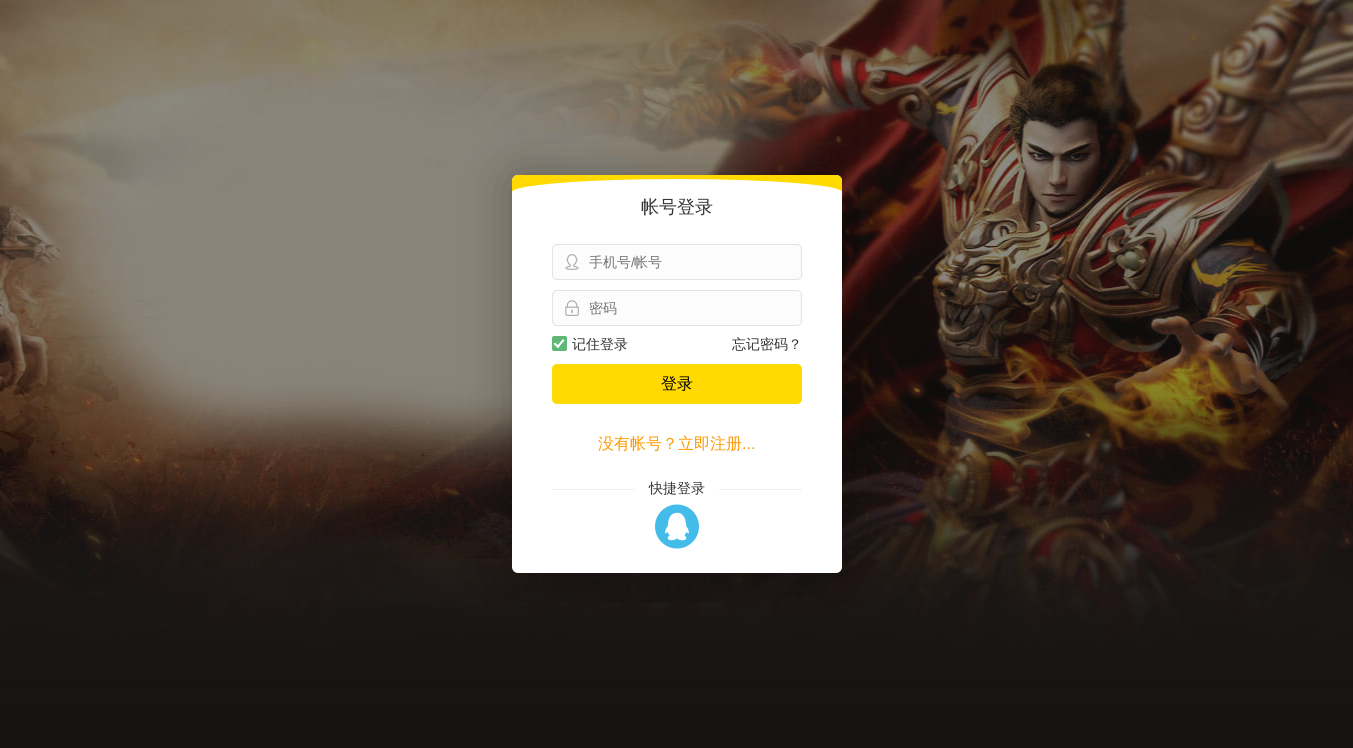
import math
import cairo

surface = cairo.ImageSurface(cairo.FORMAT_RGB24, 1353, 748)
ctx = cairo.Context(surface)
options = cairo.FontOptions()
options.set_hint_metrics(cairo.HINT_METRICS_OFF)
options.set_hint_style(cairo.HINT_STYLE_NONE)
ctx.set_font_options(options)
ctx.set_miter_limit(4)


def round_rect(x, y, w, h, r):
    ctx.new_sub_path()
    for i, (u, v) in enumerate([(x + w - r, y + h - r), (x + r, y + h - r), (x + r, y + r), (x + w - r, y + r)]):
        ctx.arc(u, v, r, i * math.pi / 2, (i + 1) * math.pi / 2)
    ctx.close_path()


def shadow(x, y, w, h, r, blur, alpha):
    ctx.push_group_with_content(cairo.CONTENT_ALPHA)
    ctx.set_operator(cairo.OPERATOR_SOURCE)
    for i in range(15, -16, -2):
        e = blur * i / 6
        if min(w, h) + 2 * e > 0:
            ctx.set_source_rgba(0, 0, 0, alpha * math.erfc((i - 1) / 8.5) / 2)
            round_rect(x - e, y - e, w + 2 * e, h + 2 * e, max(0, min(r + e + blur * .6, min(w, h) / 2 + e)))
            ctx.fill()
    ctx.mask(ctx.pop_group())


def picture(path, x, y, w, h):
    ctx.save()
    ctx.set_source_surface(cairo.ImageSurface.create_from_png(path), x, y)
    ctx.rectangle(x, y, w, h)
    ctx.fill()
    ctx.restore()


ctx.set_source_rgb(0.102, 0.094, 0.086)
ctx.paint()
picture("img1.png", 0, 0, 1353, 748)
ctx.set_source_rgb(0, 0, 0)
shadow(513, 176, 330, 398, 6, 25, 0.3)
ctx.set_source_rgb(1, 1, 1)
round_rect(512, 175, 330, 398, 6)
ctx.fill()
ctx.set_source_rgb(1, 0.851, 0)
ctx.new_path()
ctx.move_to(518, 175)
ctx.line_to(836, 175)
ctx.curve_to(839.5, 175, 842, 177.5, 842, 181)
ctx.line_to(842, 195)
ctx.line_to(512, 195)
ctx.line_to(512, 181)
ctx.curve_to(512, 177.5, 514.5, 175, 518, 175)
ctx.close_path()
ctx.fill()
ctx.set_source_rgb(1, 1, 1)
ctx.new_path()
ctx.move_to(677, 179)
ctx.curve_to(768, 179, 842, 185, 842, 192)
ctx.line_to(842, 204)
ctx.line_to(512, 204)
ctx.line_to(512, 192)
ctx.curve_to(512, 185, 586, 179, 677, 179)
ctx.close_path()
ctx.fill()
ctx.select_font_face("WenQuanYi Zen Hei Medium")
ctx.set_font_size(18)
ctx.set_source_rgb(0.2, 0.2, 0.2)
ctx.move_to(641, 213)
ctx.show_text("帐号登录")
ctx.set_source_rgb(0.988, 0.988, 0.988)
round_rect(552.5, 244.5, 249, 35, 4.5)
ctx.fill_preserve()
ctx.set_source_rgb(0.89, 0.89, 0.89)
ctx.set_line_width(1)
ctx.stroke()
picture("img2.png", 565, 254, 14, 16)
ctx.set_font_size(14)
ctx.set_source_rgb(0.459, 0.459, 0.459)
ctx.move_to(589, 267)
ctx.show_text("手机号")
ctx.select_font_face("Liberation Sans")
ctx.move_to(631, 267)
ctx.show_text("/")
ctx.select_font_face("WenQuanYi Zen Hei Medium")
ctx.move_to(634, 267)
ctx.show_text("帐号")
ctx.set_source_rgb(0.988, 0.988, 0.988)
round_rect(552.5, 290.5, 249, 35, 4.5)
ctx.fill_preserve()
ctx.set_source_rgb(0.89, 0.89, 0.89)
ctx.stroke()
picture("img3.png", 565, 300, 14, 16)
ctx.set_source_rgb(0.459, 0.459, 0.459)
ctx.move_to(589, 313)
ctx.show_text("密码")
ctx.set_source_rgb(0.373, 0.722, 0.471)
round_rect(552.5, 336.5, 14, 14, 1.5)
ctx.fill_preserve()
ctx.stroke()
ctx.set_source_rgb(1, 1, 1)
ctx.new_path()
ctx.move_to(563, 339)
ctx.line_to(564.5, 340.5)
ctx.line_to(558, 348)
ctx.line_to(556.5, 346.5)
ctx.close_path()
ctx.fill()
ctx.new_path()
ctx.move_to(555, 342.5)
ctx.line_to(559.5, 346.5)
ctx.line_to(558, 348)
ctx.line_to(553.5, 344)
ctx.close_path()
ctx.fill()
ctx.set_source_rgb(0.2, 0.2, 0.2)
ctx.move_to(572, 349)
ctx.show_text("记住登录")
ctx.move_to(732, 349)
ctx.show_text("忘记密码？")
ctx.set_source_rgb(1, 0.851, 0)
round_rect(552, 364, 250, 40, 5)
ctx.fill()
ctx.set_font_size(16)
ctx.set_source_rgb(0, 0, 0)
ctx.move_to(661, 389)
ctx.show_text("登录")
ctx.set_source_rgb(1, 0.6, 0)
ctx.move_to(598, 449)
ctx.show_text("没有帐号？立即注册")
ctx.select_font_face("Liberation Sans")
ctx.move_to(742, 449)
ctx.show_text("...")
ctx.set_source_rgb(0.941, 0.941, 0.941)
ctx.rectangle(552, 489, 250, 1)
ctx.fill()
ctx.set_source_rgb(1, 1, 1)
ctx.rectangle(635, 489, 84, 1)
ctx.fill()
ctx.select_font_face("WenQuanYi Zen Hei Medium")
ctx.set_font_size(14)
ctx.set_source_rgb(0.2, 0.2, 0.2)
ctx.move_to(649, 493)
ctx.show_text("快捷登录")
picture("img4.png", 655, 504, 44, 45)
surface.write_to_png("page.png")
